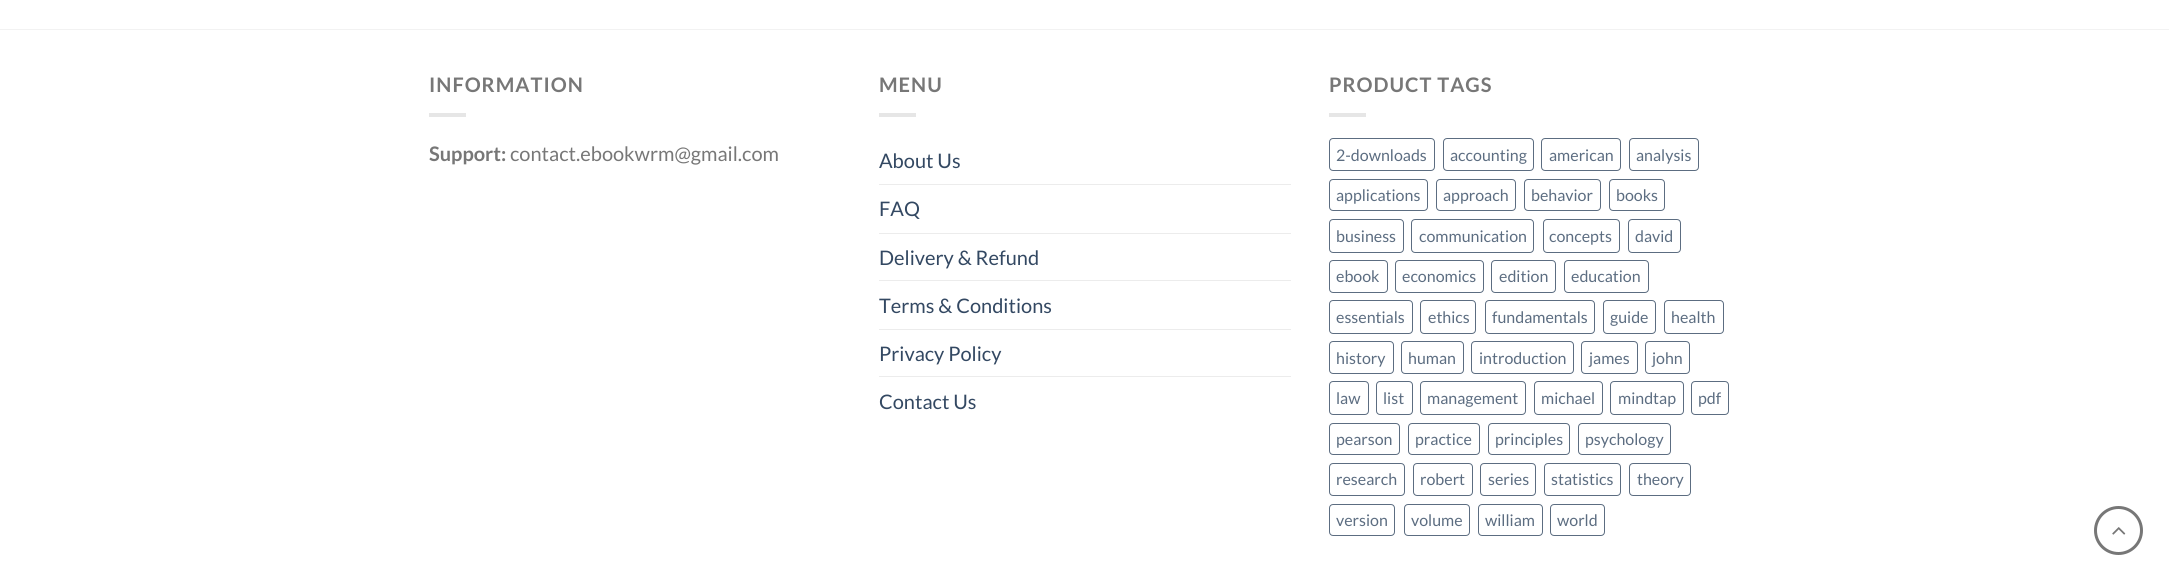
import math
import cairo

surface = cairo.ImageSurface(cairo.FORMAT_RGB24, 2169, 579)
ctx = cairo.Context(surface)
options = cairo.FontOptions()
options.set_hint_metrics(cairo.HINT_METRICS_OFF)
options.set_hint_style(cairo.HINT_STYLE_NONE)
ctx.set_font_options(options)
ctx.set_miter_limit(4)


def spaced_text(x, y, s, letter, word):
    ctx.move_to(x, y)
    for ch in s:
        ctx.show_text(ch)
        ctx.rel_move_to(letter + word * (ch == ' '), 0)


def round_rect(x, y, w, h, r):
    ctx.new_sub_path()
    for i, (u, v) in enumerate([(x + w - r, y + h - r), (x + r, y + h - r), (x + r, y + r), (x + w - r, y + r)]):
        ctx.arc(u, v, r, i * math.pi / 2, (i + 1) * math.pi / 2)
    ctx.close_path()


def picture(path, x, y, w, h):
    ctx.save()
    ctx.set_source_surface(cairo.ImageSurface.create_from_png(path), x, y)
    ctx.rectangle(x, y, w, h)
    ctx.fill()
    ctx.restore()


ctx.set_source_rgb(1, 1, 1)
ctx.paint()
ctx.set_source_rgb(0.949, 0.949, 0.949)
ctx.rectangle(0, 29, 2169, 1)
ctx.fill()
ctx.select_font_face("Lato", cairo.FONT_SLANT_NORMAL, cairo.FONT_WEIGHT_BOLD)
ctx.set_font_size(20)
ctx.set_source_rgb(0.467, 0.467, 0.467)
spaced_text(429, 92, "INFORMATION", 1, 0)
ctx.set_source_rgb(0.902, 0.902, 0.902)
ctx.rectangle(429, 113, 37, 4)
ctx.fill()
ctx.set_source_rgb(0.467, 0.467, 0.467)
ctx.move_to(429, 161)
ctx.show_text("Support:")
ctx.select_font_face("Lato")
ctx.move_to(510, 161)
ctx.show_text("contact.ebookwrm@gmail.com")
ctx.select_font_face("Lato", cairo.FONT_SLANT_NORMAL, cairo.FONT_WEIGHT_BOLD)
spaced_text(879, 92, "MENU", 1, 0)
ctx.set_source_rgb(0.902, 0.902, 0.902)
ctx.rectangle(879, 113, 37, 4)
ctx.fill()
ctx.select_font_face("Lato")
ctx.set_source_rgb(0.2, 0.282, 0.384)
ctx.move_to(879, 168)
ctx.show_text("About Us")
ctx.set_source_rgb(0.925, 0.925, 0.925)
ctx.rectangle(879, 184, 412, 1)
ctx.fill()
ctx.set_source_rgb(0.2, 0.282, 0.384)
ctx.move_to(879, 216)
ctx.show_text("FAQ")
ctx.set_source_rgb(0.925, 0.925, 0.925)
ctx.rectangle(879, 233, 412, 1)
ctx.fill()
ctx.set_source_rgb(0.2, 0.282, 0.384)
ctx.move_to(879, 265)
ctx.show_text("Delivery & Refund")
ctx.set_source_rgb(0.925, 0.925, 0.925)
ctx.rectangle(879, 280, 412, 1)
ctx.fill()
ctx.set_source_rgb(0.2, 0.282, 0.384)
ctx.move_to(879, 313)
ctx.show_text("Terms & Conditions")
ctx.set_source_rgb(0.925, 0.925, 0.925)
ctx.rectangle(879, 329, 412, 1)
ctx.fill()
ctx.set_source_rgb(0.2, 0.282, 0.384)
ctx.move_to(879, 361)
ctx.show_text("Privacy Policy")
ctx.set_source_rgb(0.925, 0.925, 0.925)
ctx.rectangle(879, 376, 412, 1)
ctx.fill()
ctx.set_source_rgb(0.2, 0.282, 0.384)
ctx.move_to(879, 409)
ctx.show_text("Contact Us")
ctx.select_font_face("Lato", cairo.FONT_SLANT_NORMAL, cairo.FONT_WEIGHT_BOLD)
ctx.set_source_rgb(0.467, 0.467, 0.467)
spaced_text(1329, 92, "PRODUCT TAGS", 1, 0)
ctx.set_source_rgb(0.902, 0.902, 0.902)
ctx.rectangle(1329, 113, 37, 4)
ctx.fill()
round_rect(1329.5, 138.5, 105, 32, 3.5)
ctx.set_source_rgb(0.361, 0.427, 0.506)
ctx.set_line_width(1)
ctx.stroke()
ctx.select_font_face("Lato")
ctx.set_font_size(16)
ctx.move_to(1336, 161)
ctx.show_text("2-downloads")
round_rect(1443.5, 138.5, 90, 32, 3.5)
ctx.stroke()
ctx.move_to(1450, 161)
ctx.show_text("accounting")
round_rect(1541.5, 138.5, 79, 32, 3.5)
ctx.stroke()
ctx.move_to(1549, 161)
ctx.show_text("american")
round_rect(1629.5, 138.5, 69, 32, 3.5)
ctx.stroke()
ctx.move_to(1636, 161)
ctx.show_text("analysis")
round_rect(1329.5, 179.5, 98, 31, 3.5)
ctx.stroke()
ctx.move_to(1336, 201)
ctx.show_text("applications")
round_rect(1436.5, 179.5, 79, 31, 3.5)
ctx.stroke()
ctx.move_to(1443, 201)
ctx.show_text("approach")
round_rect(1524.5, 179.5, 76, 31, 3.5)
ctx.stroke()
ctx.move_to(1531, 201)
ctx.show_text("behavior")
round_rect(1609.5, 179.5, 55, 31, 3.5)
ctx.stroke()
ctx.move_to(1616, 201)
ctx.show_text("books")
round_rect(1329.5, 219.5, 74, 33, 3.5)
ctx.stroke()
ctx.move_to(1336, 242)
ctx.show_text("business")
round_rect(1411.5, 219.5, 122, 33, 3.5)
ctx.stroke()
ctx.move_to(1419, 242)
ctx.show_text("communication")
round_rect(1543.5, 219.5, 76, 33, 3.5)
ctx.stroke()
ctx.move_to(1549, 242)
ctx.show_text("concepts")
round_rect(1628.5, 219.5, 52, 33, 3.5)
ctx.stroke()
ctx.move_to(1635, 242)
ctx.show_text("david")
round_rect(1329.5, 260.5, 58, 32, 3.5)
ctx.stroke()
ctx.move_to(1336, 282)
ctx.show_text("ebook")
round_rect(1395.5, 260.5, 88, 32, 3.5)
ctx.stroke()
ctx.move_to(1402, 282)
ctx.show_text("economics")
round_rect(1491.5, 260.5, 64, 32, 3.5)
ctx.stroke()
ctx.move_to(1499, 282)
ctx.show_text("edition")
round_rect(1564.5, 260.5, 84, 32, 3.5)
ctx.stroke()
ctx.move_to(1571, 282)
ctx.show_text("education")
round_rect(1329.5, 300.5, 83, 33, 3.5)
ctx.stroke()
ctx.move_to(1336, 323)
ctx.show_text("essentials")
round_rect(1420.5, 300.5, 55, 33, 3.5)
ctx.stroke()
ctx.move_to(1428, 323)
ctx.show_text("ethics")
round_rect(1485.5, 300.5, 109, 33, 3.5)
ctx.stroke()
ctx.move_to(1492, 323)
ctx.show_text("fundamentals")
round_rect(1603.5, 300.5, 52, 33, 3.5)
ctx.stroke()
ctx.move_to(1610, 323)
ctx.show_text("guide")
round_rect(1664.5, 300.5, 59, 33, 3.5)
ctx.stroke()
ctx.move_to(1671, 323)
ctx.show_text("health")
round_rect(1329.5, 341.5, 64, 32, 3.5)
ctx.stroke()
ctx.move_to(1336, 364)
ctx.show_text("history")
round_rect(1401.5, 341.5, 62, 32, 3.5)
ctx.stroke()
ctx.move_to(1408, 364)
ctx.show_text("human")
round_rect(1471.5, 341.5, 102, 32, 3.5)
ctx.stroke()
ctx.move_to(1479, 364)
ctx.show_text("introduction")
round_rect(1581.5, 341.5, 56, 32, 3.5)
ctx.stroke()
ctx.move_to(1589, 364)
ctx.show_text("james")
round_rect(1645.5, 341.5, 44, 32, 3.5)
ctx.stroke()
ctx.move_to(1652, 364)
ctx.show_text("john")
round_rect(1329.5, 381.5, 39, 33, 3.5)
ctx.stroke()
ctx.move_to(1336, 404)
ctx.show_text("law")
round_rect(1376.5, 381.5, 36, 33, 3.5)
ctx.stroke()
ctx.move_to(1383, 404)
ctx.show_text("list")
round_rect(1420.5, 381.5, 105, 33, 3.5)
ctx.stroke()
ctx.move_to(1427, 404)
ctx.show_text("management")
round_rect(1534.5, 381.5, 68, 33, 3.5)
ctx.stroke()
ctx.move_to(1541, 404)
ctx.show_text("michael")
round_rect(1610.5, 381.5, 73, 33, 3.5)
ctx.stroke()
ctx.move_to(1618, 404)
ctx.show_text("mindtap")
round_rect(1691.5, 381.5, 37, 33, 3.5)
ctx.stroke()
ctx.move_to(1698, 404)
ctx.show_text("pdf")
round_rect(1329.5, 423.5, 70, 31, 3.5)
ctx.stroke()
ctx.move_to(1336, 445)
ctx.show_text("pearson")
round_rect(1408.5, 423.5, 71, 31, 3.5)
ctx.stroke()
ctx.move_to(1415, 445)
ctx.show_text("practice")
round_rect(1488.5, 423.5, 81, 31, 3.5)
ctx.stroke()
ctx.move_to(1495, 445)
ctx.show_text("principles")
round_rect(1578.5, 423.5, 92, 31, 3.5)
ctx.stroke()
ctx.move_to(1585, 445)
ctx.show_text("psychology")
round_rect(1329.5, 463.5, 75, 32, 3.5)
ctx.stroke()
ctx.move_to(1336, 485)
ctx.show_text("research")
round_rect(1413.5, 463.5, 59, 32, 3.5)
ctx.stroke()
ctx.move_to(1420, 485)
ctx.show_text("robert")
round_rect(1480.5, 463.5, 55, 32, 3.5)
ctx.stroke()
ctx.move_to(1488, 485)
ctx.show_text("series")
round_rect(1544.5, 463.5, 76, 32, 3.5)
ctx.stroke()
ctx.move_to(1551, 485)
ctx.show_text("statistics")
round_rect(1629.5, 463.5, 61, 32, 3.5)
ctx.stroke()
ctx.move_to(1637, 485)
ctx.show_text("theory")
round_rect(1329.5, 504.5, 65, 31, 3.5)
ctx.stroke()
ctx.move_to(1336, 526)
ctx.show_text("version")
round_rect(1404.5, 504.5, 65, 31, 3.5)
ctx.stroke()
ctx.move_to(1411, 526)
ctx.show_text("volume")
round_rect(1478.5, 504.5, 64, 31, 3.5)
ctx.stroke()
ctx.move_to(1485, 526)
ctx.show_text("william")
round_rect(1550.5, 504.5, 54, 31, 3.5)
ctx.stroke()
ctx.move_to(1557, 526)
ctx.show_text("world")
ctx.new_path()
ctx.arc(2118.5, 530.5, 23, 0, 2 * math.pi)
ctx.set_source_rgb(0.467, 0.467, 0.467)
ctx.set_line_width(3)
ctx.stroke()
picture("img1.png", 2112, 527, 14, 8)
surface.write_to_png("page.png")
